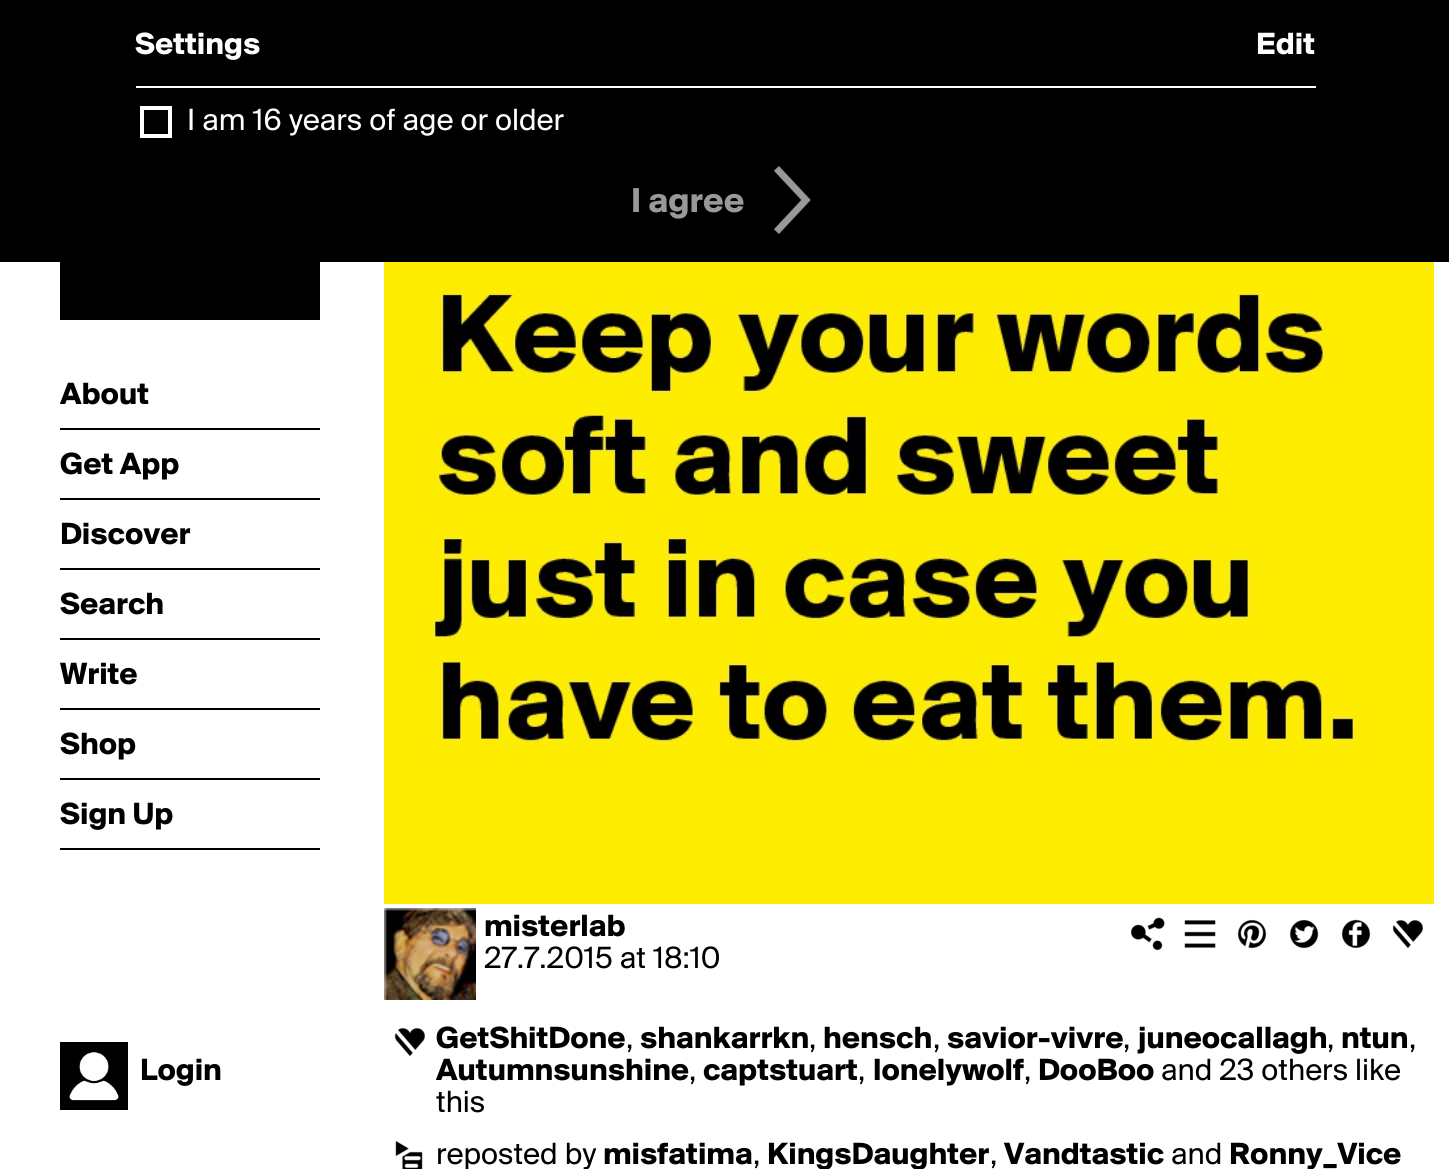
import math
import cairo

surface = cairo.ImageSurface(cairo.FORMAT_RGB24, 1449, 1169)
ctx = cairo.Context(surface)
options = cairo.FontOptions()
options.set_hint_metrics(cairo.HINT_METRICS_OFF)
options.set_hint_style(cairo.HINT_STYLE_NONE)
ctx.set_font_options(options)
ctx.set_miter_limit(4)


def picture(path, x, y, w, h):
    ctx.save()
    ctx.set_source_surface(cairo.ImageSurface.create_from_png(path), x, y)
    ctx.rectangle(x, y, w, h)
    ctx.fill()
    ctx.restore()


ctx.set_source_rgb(1, 1, 1)
ctx.paint()
ctx.set_source_rgb(0, 0, 0)
ctx.rectangle(0, 0, 1449, 262)
ctx.fill()
ctx.select_font_face("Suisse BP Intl", cairo.FONT_SLANT_NORMAL, cairo.FONT_WEIGHT_BOLD)
ctx.set_font_size(32)
ctx.set_source_rgb(1, 1, 1)
ctx.move_to(135, 54)
ctx.show_text("Settings")
ctx.move_to(1256, 54)
ctx.show_text("Edit")
ctx.rectangle(136, 86, 1180, 2)
ctx.fill()
ctx.rectangle(142, 108, 28, 28)
ctx.set_line_width(4)
ctx.stroke()
ctx.select_font_face("Suisse BP Intl")
ctx.move_to(187, 130)
ctx.show_text("I am 16 years of age or older")
ctx.select_font_face("Suisse BP Intl", cairo.FONT_SLANT_NORMAL, cairo.FONT_WEIGHT_BOLD)
ctx.set_font_size(36)
ctx.set_source_rgb(0.6, 0.6, 0.6)
ctx.move_to(631, 212)
ctx.show_text("I agree")
picture("img1.png", 773, 166, 38, 68)
ctx.set_source_rgb(0, 0, 0)
ctx.rectangle(60, 262, 260, 58)
ctx.fill()
ctx.rectangle(60, 428, 260, 2)
ctx.fill()
ctx.set_font_size(32)
ctx.move_to(60, 404)
ctx.show_text("About")
ctx.rectangle(60, 498, 260, 2)
ctx.fill()
ctx.move_to(60, 474)
ctx.show_text("Get App")
ctx.rectangle(60, 568, 260, 2)
ctx.fill()
ctx.move_to(60, 544)
ctx.show_text("Discover")
ctx.rectangle(60, 638, 260, 2)
ctx.fill()
ctx.move_to(60, 614)
ctx.show_text("Search")
ctx.rectangle(60, 708, 260, 2)
ctx.fill()
ctx.move_to(60, 684)
ctx.show_text("Write")
ctx.rectangle(60, 778, 260, 2)
ctx.fill()
ctx.move_to(60, 754)
ctx.show_text("Shop")
ctx.rectangle(60, 848, 260, 2)
ctx.fill()
ctx.move_to(60, 824)
ctx.show_text("Sign Up")
picture("img2.png", 60, 1042, 68, 68)
ctx.move_to(140, 1080)
ctx.show_text("Login")
picture("img3.png", 384, 262, 1050, 642)
picture("img4.png", 384, 908, 92, 92)
ctx.move_to(484, 936)
ctx.show_text("misterlab")
ctx.select_font_face("Suisse BP Intl")
ctx.move_to(484, 968)
ctx.show_text("27.7.2015 at 18:10")
picture("img5.png", 1130, 917, 35, 34)
picture("img6.png", 1184, 920, 32, 28)
picture("img7.png", 1237, 919, 30, 30)
picture("img8.png", 1289, 919, 30, 30)
picture("img9.png", 1341, 919, 30, 30)
picture("img10.png", 1392, 920, 31, 29)
picture("img10.png", 394, 1028, 31, 29)
ctx.select_font_face("Suisse BP Intl", cairo.FONT_SLANT_NORMAL, cairo.FONT_WEIGHT_BOLD)
ctx.move_to(436, 1048)
ctx.show_text("GetShitDone")
ctx.select_font_face("Suisse BP Intl")
ctx.move_to(626, 1048)
ctx.show_text(",")
ctx.select_font_face("Suisse BP Intl", cairo.FONT_SLANT_NORMAL, cairo.FONT_WEIGHT_BOLD)
ctx.move_to(640, 1048)
ctx.show_text("shankarrkn")
ctx.select_font_face("Suisse BP Intl")
ctx.move_to(809, 1048)
ctx.show_text(",")
ctx.select_font_face("Suisse BP Intl", cairo.FONT_SLANT_NORMAL, cairo.FONT_WEIGHT_BOLD)
ctx.move_to(823, 1048)
ctx.show_text("hensch")
ctx.select_font_face("Suisse BP Intl")
ctx.move_to(933, 1048)
ctx.show_text(",")
ctx.select_font_face("Suisse BP Intl", cairo.FONT_SLANT_NORMAL, cairo.FONT_WEIGHT_BOLD)
ctx.move_to(947, 1048)
ctx.show_text("savior-vivre")
ctx.select_font_face("Suisse BP Intl")
ctx.move_to(1123, 1048)
ctx.show_text(",")
ctx.select_font_face("Suisse BP Intl", cairo.FONT_SLANT_NORMAL, cairo.FONT_WEIGHT_BOLD)
ctx.move_to(1138, 1048)
ctx.show_text("juneocallagh")
ctx.select_font_face("Suisse BP Intl")
ctx.move_to(1327, 1048)
ctx.show_text(",")
ctx.select_font_face("Suisse BP Intl", cairo.FONT_SLANT_NORMAL, cairo.FONT_WEIGHT_BOLD)
ctx.move_to(1341, 1048)
ctx.show_text("ntun")
ctx.select_font_face("Suisse BP Intl")
ctx.move_to(1409, 1048)
ctx.show_text(",")
ctx.select_font_face("Suisse BP Intl", cairo.FONT_SLANT_NORMAL, cairo.FONT_WEIGHT_BOLD)
ctx.move_to(436, 1080)
ctx.show_text("Autumnsunshine")
ctx.select_font_face("Suisse BP Intl")
ctx.move_to(689, 1080)
ctx.show_text(",")
ctx.select_font_face("Suisse BP Intl", cairo.FONT_SLANT_NORMAL, cairo.FONT_WEIGHT_BOLD)
ctx.move_to(703, 1080)
ctx.show_text("captstuart")
ctx.select_font_face("Suisse BP Intl")
ctx.move_to(858, 1080)
ctx.show_text(",")
ctx.select_font_face("Suisse BP Intl", cairo.FONT_SLANT_NORMAL, cairo.FONT_WEIGHT_BOLD)
ctx.move_to(873, 1080)
ctx.show_text("lonelywolf")
ctx.select_font_face("Suisse BP Intl")
ctx.move_to(1024, 1080)
ctx.show_text(",")
ctx.select_font_face("Suisse BP Intl", cairo.FONT_SLANT_NORMAL, cairo.FONT_WEIGHT_BOLD)
ctx.move_to(1038, 1080)
ctx.show_text("DooBoo")
ctx.select_font_face("Suisse BP Intl")
ctx.move_to(1161, 1080)
ctx.show_text("and 23 others like")
ctx.move_to(436, 1112)
ctx.show_text("this")
picture("img11.png", 395, 1141, 28, 28)
ctx.move_to(436, 1164)
ctx.show_text("reposted by")
ctx.select_font_face("Suisse BP Intl", cairo.FONT_SLANT_NORMAL, cairo.FONT_WEIGHT_BOLD)
ctx.move_to(603, 1164)
ctx.show_text("misfatima")
ctx.select_font_face("Suisse BP Intl")
ctx.move_to(753, 1164)
ctx.show_text(",")
ctx.select_font_face("Suisse BP Intl", cairo.FONT_SLANT_NORMAL, cairo.FONT_WEIGHT_BOLD)
ctx.move_to(767, 1164)
ctx.show_text("KingsDaughter")
ctx.select_font_face("Suisse BP Intl")
ctx.move_to(990, 1164)
ctx.show_text(",")
ctx.select_font_face("Suisse BP Intl", cairo.FONT_SLANT_NORMAL, cairo.FONT_WEIGHT_BOLD)
ctx.move_to(1004, 1164)
ctx.show_text("Vandtastic")
ctx.select_font_face("Suisse BP Intl")
ctx.move_to(1171, 1164)
ctx.show_text("and")
ctx.select_font_face("Suisse BP Intl", cairo.FONT_SLANT_NORMAL, cairo.FONT_WEIGHT_BOLD)
ctx.move_to(1229, 1164)
ctx.show_text("Ronny_Vice")
surface.write_to_png("page.png")
